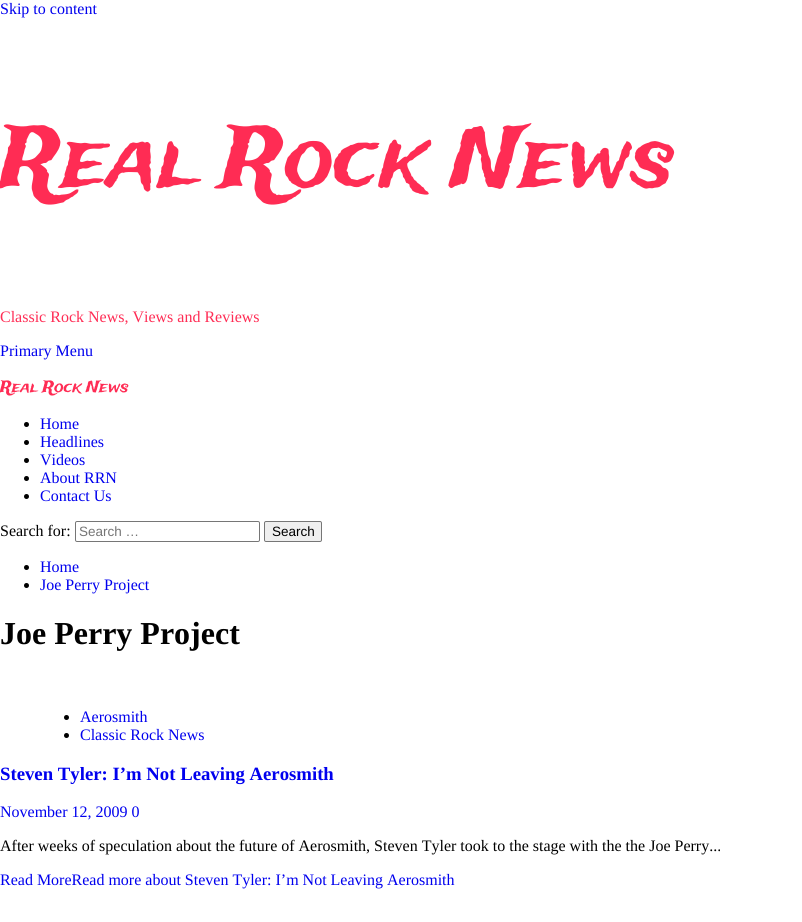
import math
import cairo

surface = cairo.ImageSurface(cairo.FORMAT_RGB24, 802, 922)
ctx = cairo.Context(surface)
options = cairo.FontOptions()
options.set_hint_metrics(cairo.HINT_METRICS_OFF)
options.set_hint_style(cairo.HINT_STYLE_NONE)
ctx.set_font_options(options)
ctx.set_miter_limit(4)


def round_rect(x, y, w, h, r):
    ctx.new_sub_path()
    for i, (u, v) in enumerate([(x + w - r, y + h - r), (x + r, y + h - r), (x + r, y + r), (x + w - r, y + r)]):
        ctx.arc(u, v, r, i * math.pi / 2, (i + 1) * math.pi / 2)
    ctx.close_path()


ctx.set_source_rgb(1, 1, 1)
ctx.paint()
ctx.select_font_face("Liberation Serif")
ctx.set_font_size(16)
ctx.set_source_rgb(0, 0, 0.933)
ctx.move_to(0, 14)
ctx.show_text("Skip to content")
ctx.select_font_face("Trade Winds")
ctx.set_font_size(84)
ctx.set_source_rgb(1, 0.173, 0.329)
ctx.move_to(0, 186)
ctx.show_text("Real Rock News")
ctx.select_font_face("Liberation Serif")
ctx.set_font_size(16)
ctx.move_to(0, 322)
ctx.show_text("Classic Rock News, Views and Reviews")
ctx.set_source_rgb(0, 0, 0.933)
ctx.move_to(0, 356)
ctx.show_text("Primary Menu")
ctx.select_font_face("Trade Winds")
ctx.set_source_rgb(1, 0.173, 0.329)
ctx.move_to(0, 392)
ctx.show_text("Real Rock News")
ctx.set_source_rgb(0, 0, 0)
ctx.new_path()
ctx.arc(26.5, 424.5, 2.5, 0, 2 * math.pi)
ctx.fill()
ctx.select_font_face("Liberation Serif")
ctx.set_source_rgb(0, 0, 0.933)
ctx.move_to(40, 429)
ctx.show_text("Home")
ctx.set_source_rgb(0, 0, 0)
ctx.new_path()
ctx.arc(26.5, 442.5, 2.5, 0, 2 * math.pi)
ctx.fill()
ctx.set_source_rgb(0, 0, 0.933)
ctx.move_to(40, 447)
ctx.show_text("Headlines")
ctx.set_source_rgb(0, 0, 0)
ctx.new_path()
ctx.arc(26.5, 460.5, 2.5, 0, 2 * math.pi)
ctx.fill()
ctx.set_source_rgb(0, 0, 0.933)
ctx.move_to(40, 465)
ctx.show_text("Videos")
ctx.set_source_rgb(0, 0, 0)
ctx.new_path()
ctx.arc(26.5, 478.5, 2.5, 0, 2 * math.pi)
ctx.fill()
ctx.set_source_rgb(0, 0, 0.933)
ctx.move_to(40, 483)
ctx.show_text("About RRN")
ctx.set_source_rgb(0, 0, 0)
ctx.new_path()
ctx.arc(26.5, 496.5, 2.5, 0, 2 * math.pi)
ctx.fill()
ctx.set_source_rgb(0, 0, 0.933)
ctx.move_to(40, 501)
ctx.show_text("Contact Us")
ctx.set_source_rgb(0, 0, 0)
ctx.move_to(0, 536)
ctx.show_text("Search for:")
round_rect(75.5, 521.5, 184, 20, 1.5)
ctx.set_source_rgb(0.463, 0.463, 0.463)
ctx.set_line_width(1)
ctx.stroke()
ctx.select_font_face("Liberation Sans")
ctx.set_font_size(13.5)
ctx.set_source_rgb(0.459, 0.459, 0.459)
ctx.move_to(79, 536)
ctx.show_text("Search …")
ctx.set_source_rgb(0.937, 0.937, 0.937)
round_rect(264.5, 521.5, 57, 20, 1.5)
ctx.fill_preserve()
ctx.set_source_rgb(0.463, 0.463, 0.463)
ctx.stroke()
ctx.set_source_rgb(0, 0, 0)
ctx.move_to(272, 536)
ctx.show_text("Search")
ctx.new_path()
ctx.arc(26.5, 567.5, 2.5, 0, 2 * math.pi)
ctx.fill()
ctx.select_font_face("Liberation Serif")
ctx.set_font_size(16)
ctx.set_source_rgb(0, 0, 0.933)
ctx.move_to(40, 572)
ctx.show_text("Home")
ctx.set_source_rgb(0, 0, 0)
ctx.new_path()
ctx.arc(26.5, 585.5, 2.5, 0, 2 * math.pi)
ctx.fill()
ctx.set_source_rgb(0, 0, 0.933)
ctx.move_to(40, 590)
ctx.show_text("Joe Perry Project")
ctx.select_font_face("Liberation Serif", cairo.FONT_SLANT_NORMAL, cairo.FONT_WEIGHT_BOLD)
ctx.set_font_size(32)
ctx.set_source_rgb(0, 0, 0)
ctx.move_to(0, 644)
ctx.show_text("Joe Perry Project")
ctx.new_path()
ctx.arc(66.5, 717.5, 2.5, 0, 2 * math.pi)
ctx.fill()
ctx.select_font_face("Liberation Serif")
ctx.set_font_size(16)
ctx.set_source_rgb(0, 0, 0.933)
ctx.move_to(80, 722)
ctx.show_text("Aerosmith")
ctx.set_source_rgb(0, 0, 0)
ctx.new_path()
ctx.arc(66.5, 735.5, 2.5, 0, 2 * math.pi)
ctx.fill()
ctx.set_source_rgb(0, 0, 0.933)
ctx.move_to(80, 740)
ctx.show_text("Classic Rock News")
ctx.select_font_face("Liberation Serif", cairo.FONT_SLANT_NORMAL, cairo.FONT_WEIGHT_BOLD)
ctx.set_font_size(18.75)
ctx.move_to(0, 780)
ctx.show_text("Steven Tyler: I’m Not Leaving Aerosmith")
ctx.select_font_face("Liberation Serif")
ctx.set_font_size(16)
ctx.move_to(0, 817)
ctx.show_text("November 12, 2009 0")
ctx.set_source_rgb(0, 0, 0)
ctx.move_to(0, 851)
ctx.show_text("After weeks of speculation about the future of Aerosmith, Steven Tyler took to the stage with the the Joe Perry...")
ctx.set_source_rgb(0, 0, 0.933)
ctx.move_to(0, 885)
ctx.show_text("Read MoreRead more about Steven Tyler: I’m Not Leaving Aerosmith")
surface.write_to_png("page.png")
